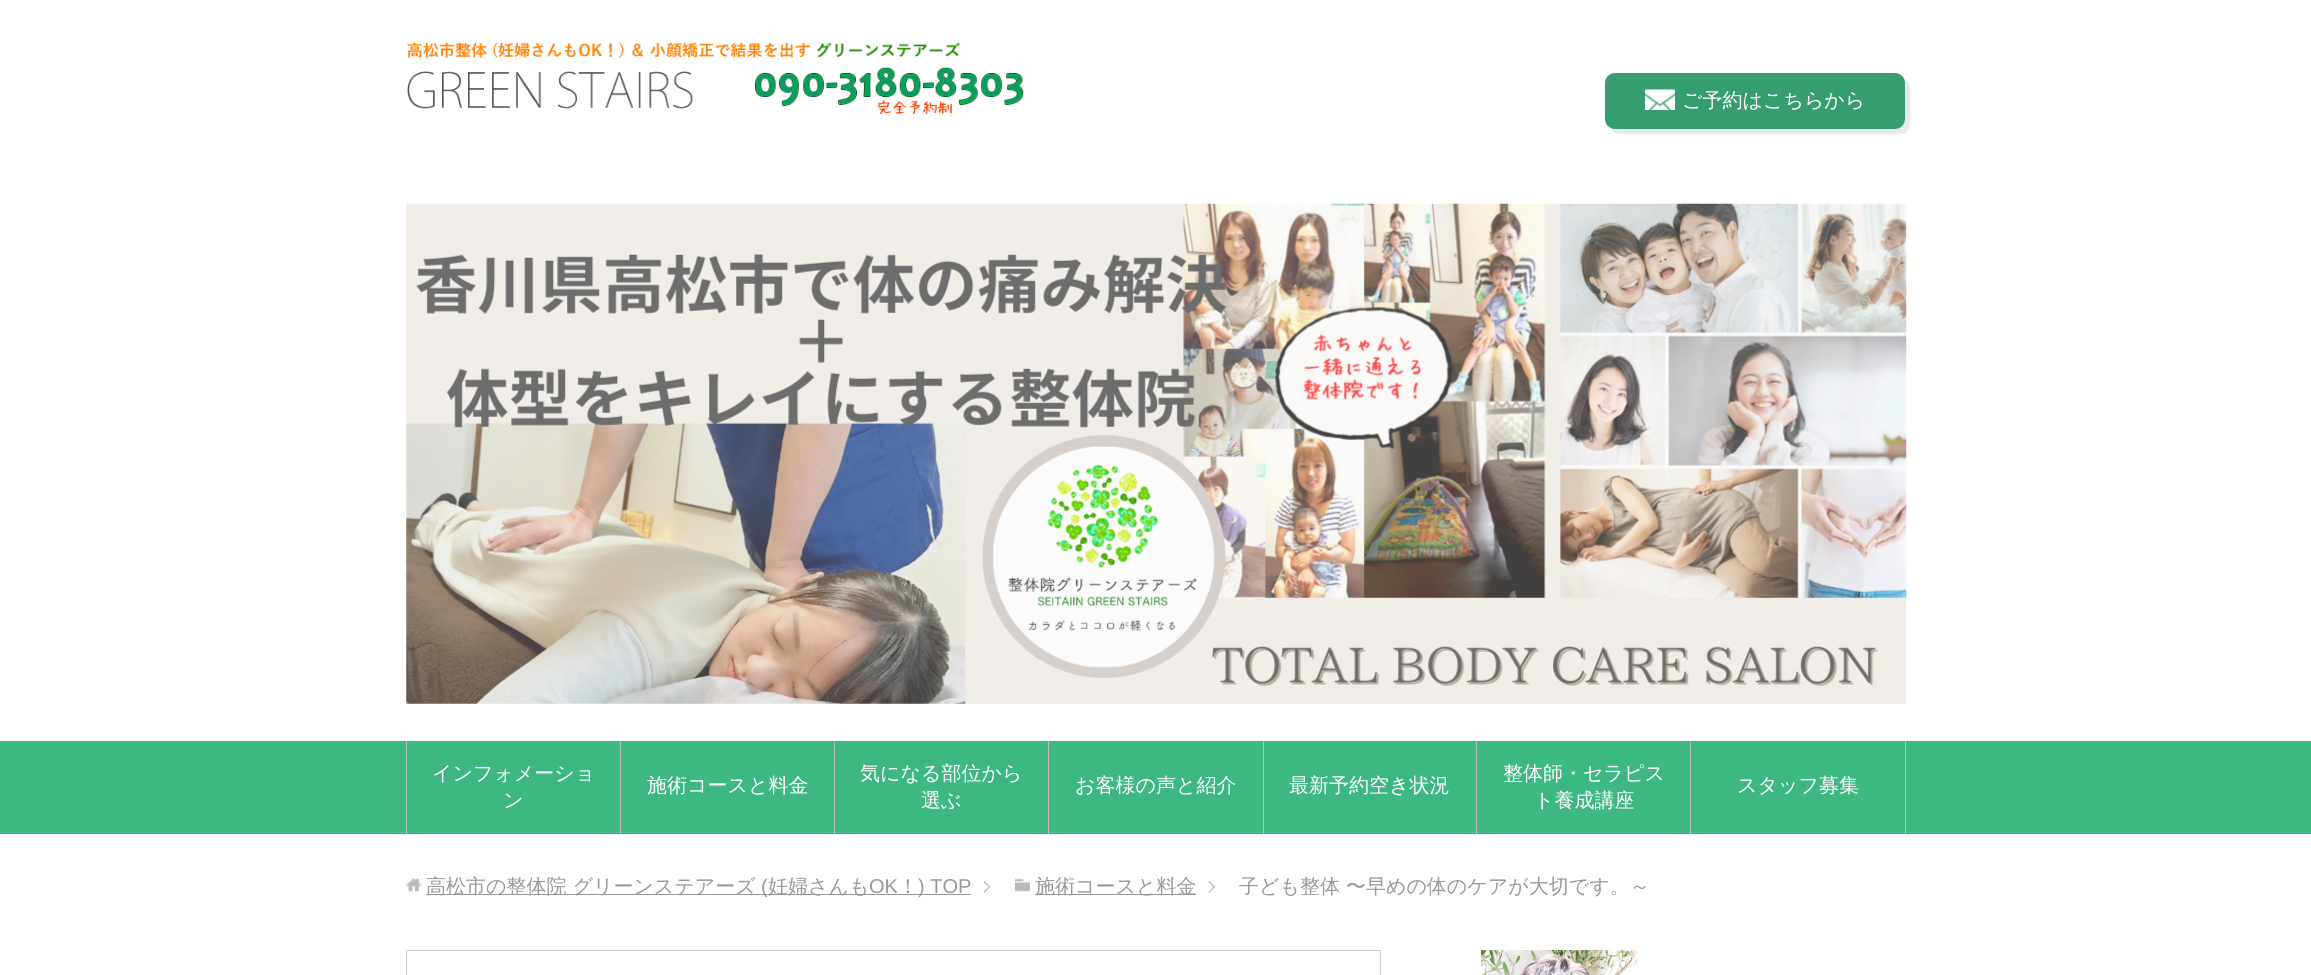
import math
import cairo

surface = cairo.ImageSurface(cairo.FORMAT_RGB24, 2311, 975)
ctx = cairo.Context(surface)
options = cairo.FontOptions()
options.set_hint_metrics(cairo.HINT_METRICS_OFF)
options.set_hint_style(cairo.HINT_STYLE_NONE)
ctx.set_font_options(options)
ctx.set_miter_limit(4)


def round_rect(x, y, w, h, r):
    ctx.new_sub_path()
    for i, (u, v) in enumerate([(x + w - r, y + h - r), (x + r, y + h - r), (x + r, y + r), (x + w - r, y + r)]):
        ctx.arc(u, v, r, i * math.pi / 2, (i + 1) * math.pi / 2)
    ctx.close_path()


def picture(path, x, y, w, h):
    ctx.save()
    ctx.set_source_surface(cairo.ImageSurface.create_from_png(path), x, y)
    ctx.rectangle(x, y, w, h)
    ctx.fill()
    ctx.restore()


ctx.set_source_rgb(1, 1, 1)
ctx.paint()
picture("img1.png", 407, 42, 617, 72)
ctx.set_source_rgb(0.914, 0.914, 0.914)
ctx.new_path()
ctx.move_to(1611, 128)
ctx.curve_to(1612, 131, 1616, 134, 1620, 134)
ctx.line_to(1900, 134)
ctx.curve_to(1906, 134, 1910, 130, 1910, 124)
ctx.line_to(1910, 88)
ctx.curve_to(1910, 84, 1908, 81, 1904, 79)
ctx.line_to(1905, 82)
ctx.line_to(1905, 119)
ctx.curve_to(1905, 124, 1901, 129, 1895, 129)
ctx.line_to(1615, 129)
ctx.close_path()
ctx.fill()
ctx.set_source_rgb(0.212, 0.616, 0.439)
round_rect(1605, 73, 300, 56, 10)
ctx.fill()
picture("img2.png", 1645, 89, 30, 21)
ctx.select_font_face("WenQuanYi Zen Hei Medium")
ctx.set_font_size(20)
ctx.set_source_rgb(1, 1, 1)
ctx.move_to(1682, 107)
ctx.show_text("ご予約はこちらから")
picture("img3.png", 406, 203, 1501, 501)
ctx.set_source_rgb(0.243, 0.722, 0.514)
ctx.rectangle(0, 741, 2311, 93)
ctx.fill()
ctx.set_source_rgb(0.737, 0.737, 0.737)
ctx.rectangle(406, 741, 1, 93)
ctx.fill()
ctx.rectangle(620, 741, 1, 93)
ctx.fill()
ctx.set_source_rgb(1, 1, 1)
ctx.move_to(432, 780)
ctx.show_text("インフォメーショ")
ctx.move_to(503, 807)
ctx.show_text("ン")
ctx.set_source_rgb(0.737, 0.737, 0.737)
ctx.rectangle(834, 741, 1, 93)
ctx.fill()
ctx.set_source_rgb(1, 1, 1)
ctx.move_to(647, 792)
ctx.show_text("施術コースと料金")
ctx.set_source_rgb(0.737, 0.737, 0.737)
ctx.rectangle(1048, 741, 1, 93)
ctx.fill()
ctx.set_source_rgb(1, 1, 1)
ctx.move_to(860, 780)
ctx.show_text("気になる部位から")
ctx.move_to(921, 807)
ctx.show_text("選ぶ")
ctx.set_source_rgb(0.737, 0.737, 0.737)
ctx.rectangle(1263, 741, 1, 93)
ctx.fill()
ctx.set_source_rgb(1, 1, 1)
ctx.move_to(1075, 792)
ctx.show_text("お客様の声と紹介")
ctx.set_source_rgb(0.737, 0.737, 0.737)
ctx.rectangle(1476, 741, 1, 93)
ctx.fill()
ctx.set_source_rgb(1, 1, 1)
ctx.move_to(1289, 792)
ctx.show_text("最新予約空き状況")
ctx.set_source_rgb(0.737, 0.737, 0.737)
ctx.rectangle(1690, 741, 1, 93)
ctx.fill()
ctx.set_source_rgb(1, 1, 1)
ctx.move_to(1503, 780)
ctx.show_text("整体師・セラピス")
ctx.move_to(1534, 807)
ctx.show_text("ト養成講座")
ctx.set_source_rgb(0.737, 0.737, 0.737)
ctx.rectangle(1905, 741, 1, 93)
ctx.fill()
ctx.set_source_rgb(1, 1, 1)
ctx.move_to(1737, 792)
ctx.show_text("スタッフ募集")
picture("img4.png", 983, 881, 7, 12)
picture("img5.png", 406, 878, 16, 14)
ctx.set_source_rgb(0.6, 0.6, 0.6)
ctx.rectangle(426, 894, 545, 1)
ctx.fill()
ctx.move_to(426, 893)
ctx.show_text("高松市の整体院 グリーンステアーズ")
ctx.select_font_face("Liberation Sans")
ctx.move_to(761, 893)
ctx.show_text("(")
ctx.select_font_face("WenQuanYi Zen Hei Medium")
ctx.move_to(768, 893)
ctx.show_text("妊婦さんも")
ctx.select_font_face("Liberation Sans")
ctx.move_to(869, 893)
ctx.show_text("OK")
ctx.select_font_face("WenQuanYi Zen Hei Medium")
ctx.move_to(898, 893)
ctx.show_text("！")
ctx.select_font_face("Liberation Sans")
ctx.move_to(918, 893)
ctx.show_text(") TOP")
picture("img6.png", 1208, 881, 7, 12)
picture("img7.png", 1015, 878, 15, 14)
ctx.rectangle(1035, 894, 161, 1)
ctx.fill()
ctx.select_font_face("WenQuanYi Zen Hei Medium")
ctx.move_to(1035, 893)
ctx.show_text("施術コースと料金")
ctx.move_to(1239, 893)
ctx.show_text("子ども整体 〜早めの体のケアが大切です。～")
ctx.rectangle(406.5, 950.5, 974, 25)
ctx.set_source_rgb(0.8, 0.8, 0.8)
ctx.set_line_width(1)
ctx.stroke()
picture("img8.png", 1481, 950, 157, 25)
surface.write_to_png("page.png")
